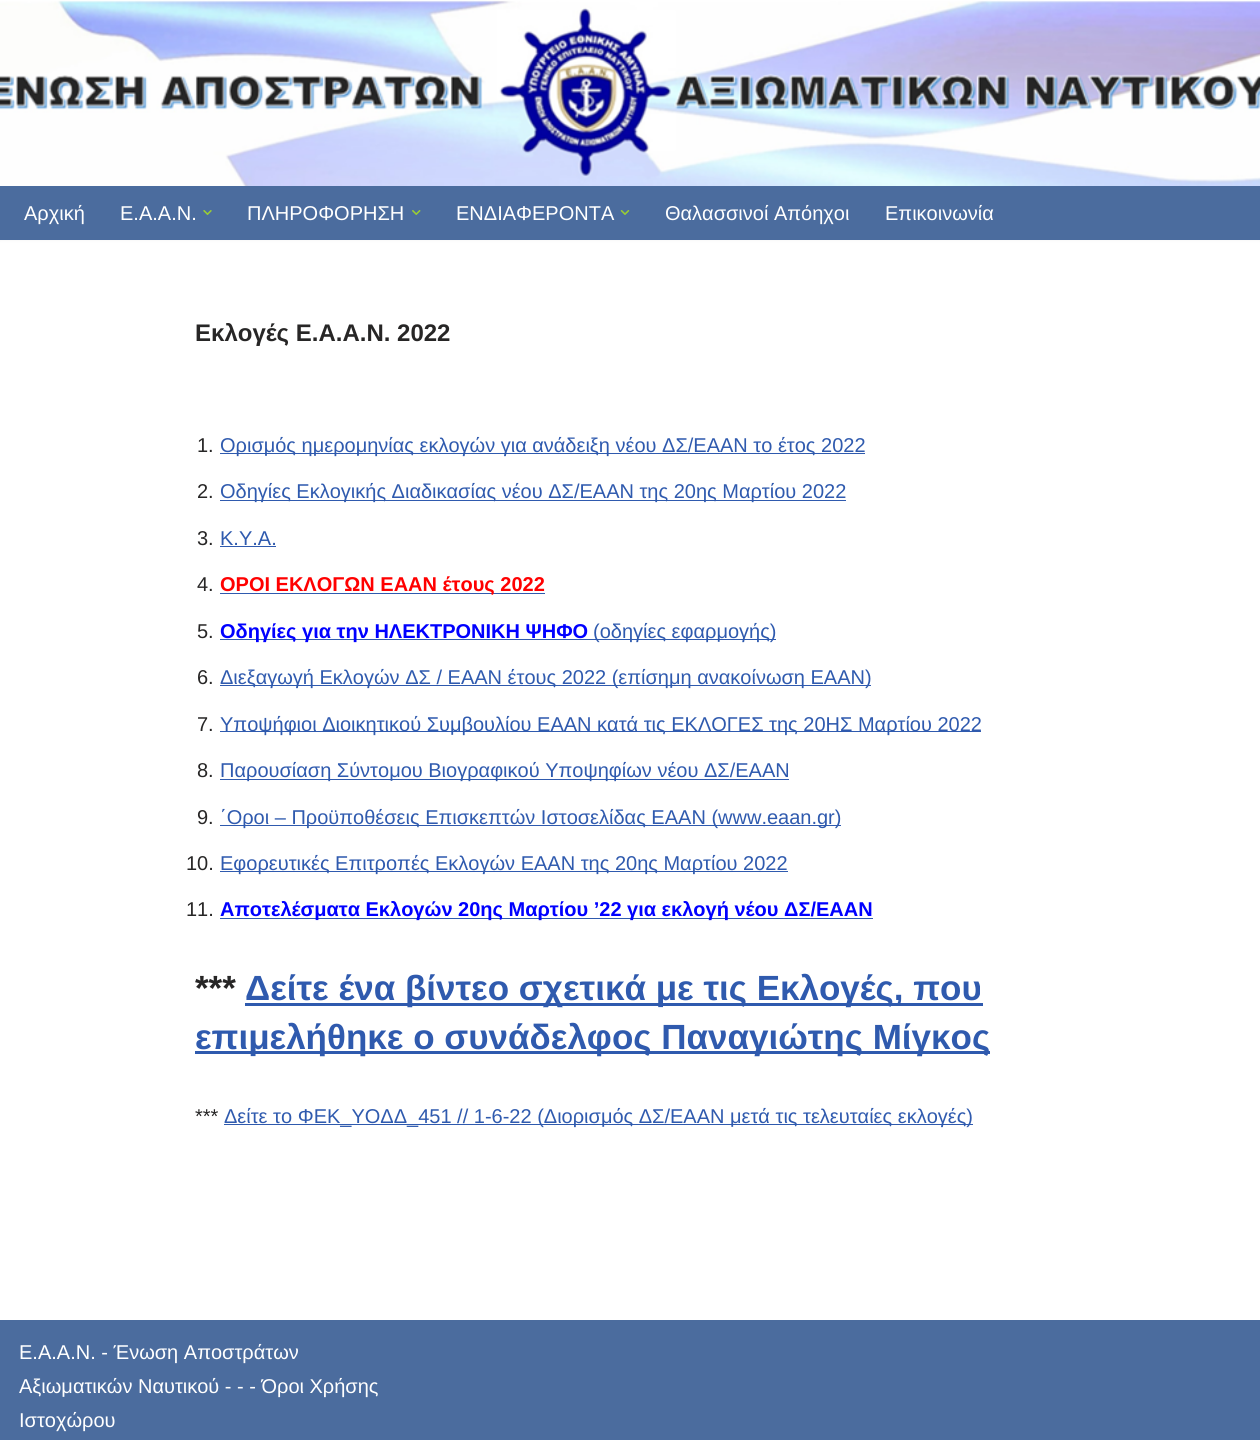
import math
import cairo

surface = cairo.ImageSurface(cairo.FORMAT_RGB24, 1260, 1440)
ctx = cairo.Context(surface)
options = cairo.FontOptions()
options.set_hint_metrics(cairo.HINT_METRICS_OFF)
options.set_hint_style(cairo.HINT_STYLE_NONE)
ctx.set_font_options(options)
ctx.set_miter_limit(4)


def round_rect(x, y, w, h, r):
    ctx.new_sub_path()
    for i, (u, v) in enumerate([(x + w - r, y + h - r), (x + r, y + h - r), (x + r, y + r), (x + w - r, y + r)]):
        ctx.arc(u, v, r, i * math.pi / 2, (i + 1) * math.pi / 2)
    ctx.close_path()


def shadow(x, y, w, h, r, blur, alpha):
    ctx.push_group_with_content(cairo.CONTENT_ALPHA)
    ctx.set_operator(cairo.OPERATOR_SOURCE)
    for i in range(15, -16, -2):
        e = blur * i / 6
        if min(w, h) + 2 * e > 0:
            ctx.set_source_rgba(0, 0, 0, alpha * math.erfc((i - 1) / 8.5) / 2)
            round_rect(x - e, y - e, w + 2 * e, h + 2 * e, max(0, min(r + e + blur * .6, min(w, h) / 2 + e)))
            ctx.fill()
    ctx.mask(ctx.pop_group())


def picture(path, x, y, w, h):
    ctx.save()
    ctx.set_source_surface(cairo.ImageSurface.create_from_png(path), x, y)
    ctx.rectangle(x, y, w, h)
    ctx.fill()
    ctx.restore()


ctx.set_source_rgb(1, 1, 1)
ctx.paint()
ctx.set_source_rgb(0, 0, 0)
shadow(0, -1, 1260, 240, 0, 2, 0.1)
picture("img1.png", 0, 0, 1260, 186)
ctx.set_source_rgb(0.294, 0.424, 0.62)
ctx.rectangle(0, 186, 1260, 54)
ctx.fill()
ctx.select_font_face("Liberation Sans")
ctx.set_font_size(20)
ctx.set_source_rgb(1, 1, 1)
ctx.move_to(24, 220)
ctx.show_text("Αρχική")
ctx.move_to(120, 220)
ctx.show_text("Ε.Α.Α.Ν.")
picture("img2.png", 203, 210, 9, 5)
ctx.move_to(247, 220)
ctx.show_text("ΠΛΗΡΟΦΟΡΗΣΗ")
picture("img3.png", 412, 210, 9, 5)
ctx.move_to(456, 220)
ctx.show_text("ΕΝΔΙΑΦΕΡΟΝΤΑ")
picture("img4.png", 620, 210, 10, 5)
ctx.move_to(665, 220)
ctx.show_text("Θαλασσινοί Απόηχοι")
ctx.move_to(885, 220)
ctx.show_text("Επικοινωνία")
ctx.select_font_face("Liberation Sans", cairo.FONT_SLANT_NORMAL, cairo.FONT_WEIGHT_BOLD)
ctx.set_font_size(24)
ctx.set_source_rgb(0.153, 0.149, 0.149)
ctx.move_to(195, 341)
ctx.show_text("Εκλογές Ε.Α.Α.Ν. 2022")
ctx.select_font_face("Liberation Sans")
ctx.set_font_size(20)
ctx.move_to(197, 452)
ctx.show_text("1.")
ctx.set_source_rgb(0.184, 0.353, 0.682)
ctx.rectangle(220, 453, 645, 1)
ctx.fill()
ctx.move_to(220, 452)
ctx.show_text("Ορισμός ημερομηνίας εκλογών για ανάδειξη νέου ΔΣ/ΕΑΑΝ το έτος 2022")
ctx.set_source_rgb(0.153, 0.149, 0.149)
ctx.move_to(197, 498)
ctx.show_text("2.")
ctx.set_source_rgb(0.184, 0.353, 0.682)
ctx.rectangle(220, 500, 626, 1)
ctx.fill()
ctx.move_to(220, 498)
ctx.show_text("Οδηγίες Εκλογικής Διαδικασίας νέου ΔΣ/ΕΑΑΝ της 20ης Μαρτίου 2022")
ctx.set_source_rgb(0.153, 0.149, 0.149)
ctx.move_to(197, 545)
ctx.show_text("3.")
ctx.set_source_rgb(0.184, 0.353, 0.682)
ctx.move_to(220, 545)
ctx.show_text("Κ.Υ.Α.")
ctx.rectangle(220, 546, 56, 1)
ctx.fill()
ctx.set_source_rgb(0.153, 0.149, 0.149)
ctx.move_to(197, 591)
ctx.show_text("4.")
ctx.set_source_rgb(0.184, 0.353, 0.682)
ctx.rectangle(220, 593, 325, 1)
ctx.fill()
ctx.select_font_face("Liberation Sans", cairo.FONT_SLANT_NORMAL, cairo.FONT_WEIGHT_BOLD)
ctx.set_source_rgb(1, 0, 0)
ctx.move_to(220, 591)
ctx.show_text("ΟΡΟΙ ΕΚΛΟΓΩΝ ΕΑΑΝ έτους 2022")
ctx.select_font_face("Liberation Sans")
ctx.set_source_rgb(0.153, 0.149, 0.149)
ctx.move_to(197, 638)
ctx.show_text("5.")
ctx.set_source_rgb(0.184, 0.353, 0.682)
ctx.rectangle(220, 639, 556, 1)
ctx.fill()
ctx.select_font_face("Liberation Sans", cairo.FONT_SLANT_NORMAL, cairo.FONT_WEIGHT_BOLD)
ctx.set_source_rgb(0, 0, 1)
ctx.move_to(220, 638)
ctx.show_text("Οδηγίες για την ΗΛΕΚΤΡΟΝΙΚΗ ΨΗΦΟ")
ctx.select_font_face("Liberation Sans")
ctx.set_source_rgb(0.184, 0.353, 0.682)
ctx.move_to(593, 638)
ctx.show_text("(οδηγίες εφαρμογής)")
ctx.set_source_rgb(0.153, 0.149, 0.149)
ctx.move_to(197, 684)
ctx.show_text("6.")
ctx.set_source_rgb(0.184, 0.353, 0.682)
ctx.rectangle(220, 685, 651, 1)
ctx.fill()
ctx.move_to(220, 684)
ctx.show_text("Διεξαγωγή Εκλογών ΔΣ / ΕΑΑΝ έτους 2022 (επίσημη ανακοίνωση ΕΑΑΝ)")
ctx.set_source_rgb(0.153, 0.149, 0.149)
ctx.move_to(197, 731)
ctx.show_text("7.")
ctx.set_source_rgb(0.184, 0.353, 0.682)
ctx.rectangle(220, 731, 761, 1)
ctx.fill()
ctx.move_to(220, 731)
ctx.show_text("Υποψήφιοι Διοικητικού Συμβουλίου ΕΑΑΝ κατά τις ΕΚΛΟΓΕΣ της 20ΗΣ Μαρτίου 2022")
ctx.set_source_rgb(0.153, 0.149, 0.149)
ctx.move_to(197, 777)
ctx.show_text("8.")
ctx.set_source_rgb(0.184, 0.353, 0.682)
ctx.rectangle(220, 779, 569, 1)
ctx.fill()
ctx.move_to(220, 777)
ctx.show_text("Παρουσίαση Σύντομου Βιογραφικού Υποψηφίων νέου ΔΣ/ΕΑΑΝ")
ctx.set_source_rgb(0.153, 0.149, 0.149)
ctx.move_to(197, 824)
ctx.show_text("9.")
ctx.set_source_rgb(0.184, 0.353, 0.682)
ctx.rectangle(220, 825, 621, 1)
ctx.fill()
ctx.move_to(220, 824)
ctx.show_text("΄Οροι – Προϋποθέσεις Επισκεπτών Ιστοσελίδας ΕΑΑΝ (www.eaan.gr)")
ctx.set_source_rgb(0.153, 0.149, 0.149)
ctx.move_to(186, 870)
ctx.show_text("10.")
ctx.set_source_rgb(0.184, 0.353, 0.682)
ctx.rectangle(220, 871, 568, 1)
ctx.fill()
ctx.move_to(220, 870)
ctx.show_text("Εφορευτικές Επιτροπές Εκλογών ΕΑΑΝ της 20ης Μαρτίου 2022")
ctx.set_source_rgb(0.153, 0.149, 0.149)
ctx.move_to(186, 916)
ctx.show_text("11.")
ctx.set_source_rgb(0.184, 0.353, 0.682)
ctx.rectangle(220, 918, 653, 1)
ctx.fill()
ctx.select_font_face("Liberation Sans", cairo.FONT_SLANT_NORMAL, cairo.FONT_WEIGHT_BOLD)
ctx.set_source_rgb(0, 0, 1)
ctx.move_to(220, 916)
ctx.show_text("Αποτελέσματα Εκλογών 20ης Μαρτίου ’22 για εκλογή νέου ΔΣ/ΕΑΑΝ")
ctx.set_font_size(35)
ctx.set_source_rgb(0.153, 0.149, 0.149)
ctx.move_to(195, 1000)
ctx.show_text("***")
ctx.set_source_rgb(0.184, 0.353, 0.682)
ctx.rectangle(245, 1003, 738, 3)
ctx.fill()
ctx.move_to(245, 1000)
ctx.show_text("Δείτε ένα βίντεο σχετικά με τις Εκλογές, που")
ctx.rectangle(195, 1051, 795, 3)
ctx.fill()
ctx.move_to(195, 1049)
ctx.show_text("επιμελήθηκε ο συνάδελφος Παναγιώτης Μίγκος")
ctx.select_font_face("Liberation Sans")
ctx.set_font_size(20)
ctx.set_source_rgb(0.153, 0.149, 0.149)
ctx.move_to(195, 1123)
ctx.show_text("***")
ctx.set_source_rgb(0.184, 0.353, 0.682)
ctx.rectangle(224, 1124, 749, 1)
ctx.fill()
ctx.move_to(224, 1123)
ctx.show_text("Δείτε το ΦΕΚ_ΥΟΔΔ_451 // 1-6-22 (Διορισμός ΔΣ/ΕΑΑΝ μετά τις τελευταίες εκλογές)")
ctx.set_source_rgb(0.294, 0.424, 0.62)
ctx.rectangle(0, 1320, 1260, 120)
ctx.fill()
ctx.set_source_rgb(1, 1, 1)
ctx.move_to(19, 1359)
ctx.show_text("Ε.Α.Α.Ν. - Ένωση Αποστράτων")
ctx.move_to(19, 1393)
ctx.show_text("Αξιωματικών Ναυτικού - - - Όροι Χρήσης")
ctx.move_to(19, 1427)
ctx.show_text("Ιστοχώρου")
surface.write_to_png("page.png")
